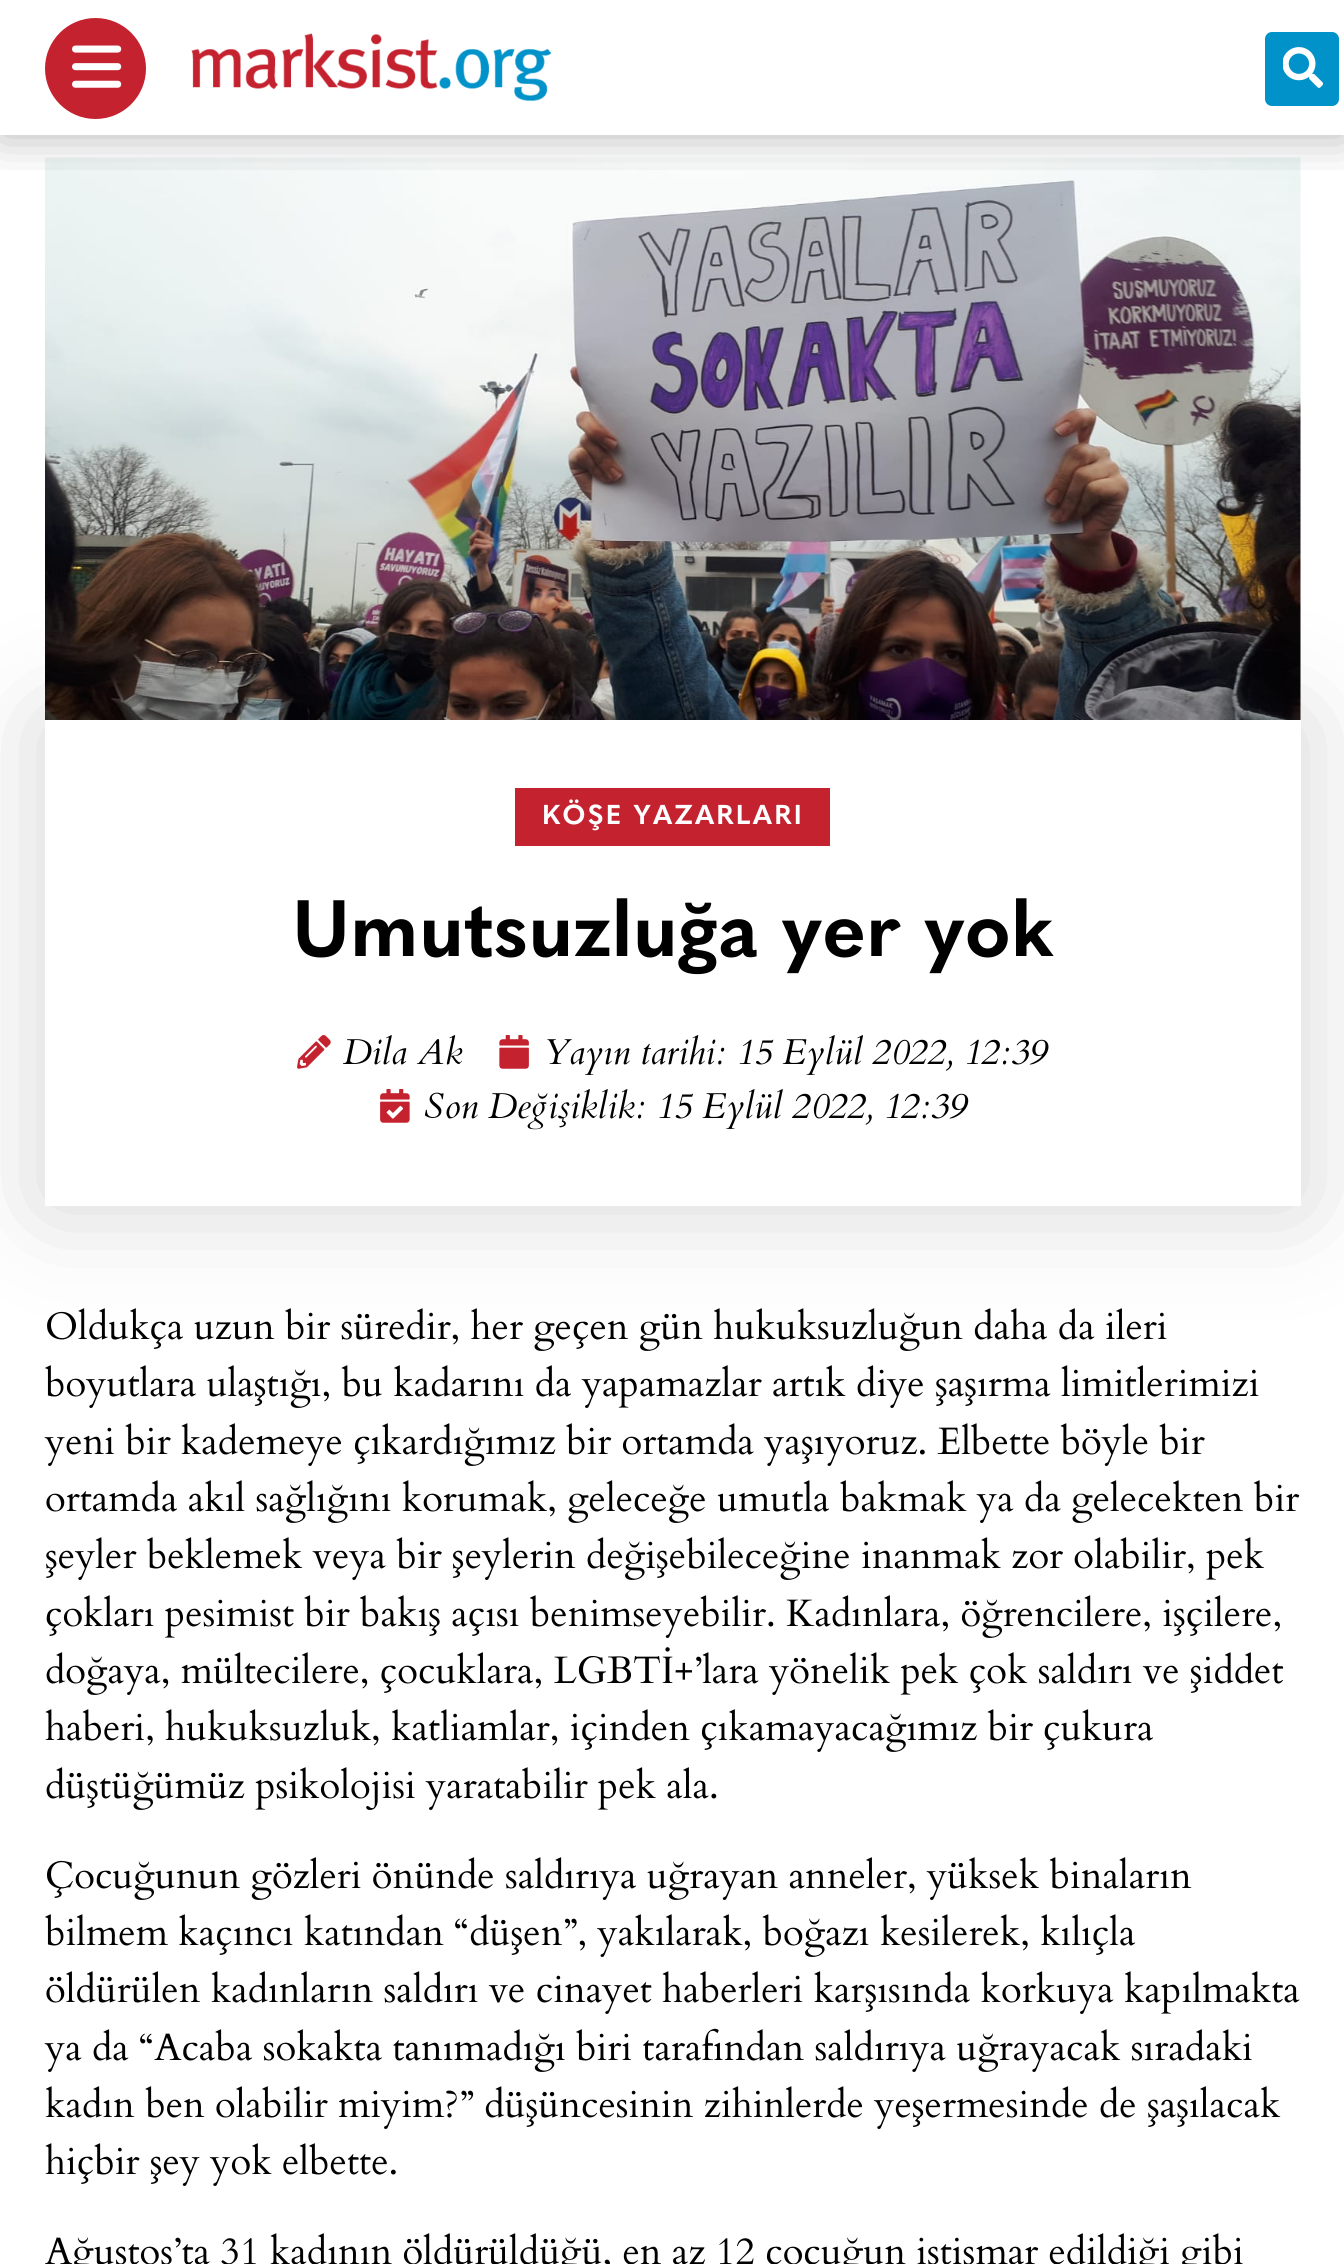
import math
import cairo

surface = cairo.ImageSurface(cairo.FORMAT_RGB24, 1344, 2264)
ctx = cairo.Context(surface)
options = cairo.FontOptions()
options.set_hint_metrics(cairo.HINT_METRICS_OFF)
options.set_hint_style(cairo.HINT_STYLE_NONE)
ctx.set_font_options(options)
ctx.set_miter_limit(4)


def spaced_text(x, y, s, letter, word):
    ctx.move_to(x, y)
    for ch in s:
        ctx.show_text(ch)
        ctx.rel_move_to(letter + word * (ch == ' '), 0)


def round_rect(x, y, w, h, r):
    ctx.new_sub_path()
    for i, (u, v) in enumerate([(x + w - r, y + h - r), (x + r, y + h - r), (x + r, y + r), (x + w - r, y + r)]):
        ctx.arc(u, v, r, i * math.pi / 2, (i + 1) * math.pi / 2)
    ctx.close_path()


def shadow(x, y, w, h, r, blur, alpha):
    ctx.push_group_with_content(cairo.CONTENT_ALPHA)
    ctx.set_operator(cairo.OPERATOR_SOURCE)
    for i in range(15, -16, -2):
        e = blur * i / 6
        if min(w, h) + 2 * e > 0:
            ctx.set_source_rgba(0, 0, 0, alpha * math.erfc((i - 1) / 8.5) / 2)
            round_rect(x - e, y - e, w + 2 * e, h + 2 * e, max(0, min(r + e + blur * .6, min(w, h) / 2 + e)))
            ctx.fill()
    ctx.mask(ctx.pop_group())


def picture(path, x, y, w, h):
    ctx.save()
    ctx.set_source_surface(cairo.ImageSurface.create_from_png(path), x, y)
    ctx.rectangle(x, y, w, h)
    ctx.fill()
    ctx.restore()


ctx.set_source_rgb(1, 1, 1)
ctx.paint()
picture("img4.png", 45, 157, 1256, 563)
ctx.save()
ctx.rectangle(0, 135, 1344, 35)
ctx.clip()
ctx.set_source_rgb(0, 0, 0)
shadow(0, 0, 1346, 135, 0, 23.5, 0.3)
ctx.restore()
ctx.set_source_rgb(0.773, 0.133, 0.188)
ctx.arc(95.5, 68.5, 50.5, 0, 2 * math.pi)
ctx.fill()
picture("img1.png", 72, 45, 50, 43)
picture("img2.png", 191, 33, 361, 68)
ctx.set_source_rgb(0, 0.573, 0.784)
round_rect(1265, 32, 74, 74, 7)
ctx.fill()
picture("img3.png", 1283, 47, 40, 41)
ctx.set_source_rgb(0, 0, 0)
shadow(45, 720, 1256, 486, 0, 53, 0.17)
ctx.set_source_rgb(1, 1, 1)
ctx.rectangle(45, 720, 1256, 486)
ctx.fill()
ctx.set_source_rgb(0.773, 0.133, 0.188)
ctx.rectangle(515, 788, 315, 58)
ctx.fill()
ctx.select_font_face("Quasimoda", cairo.FONT_SLANT_NORMAL, cairo.FONT_WEIGHT_BOLD)
ctx.set_font_size(27)
ctx.set_source_rgb(1, 1, 1)
spaced_text(542, 824, "KÖŞE YAZARLARI", 2.25, 0)
ctx.set_font_size(78.75)
ctx.set_source_rgb(0, 0, 0)
ctx.move_to(292, 956)
ctx.show_text("Umutsuzluğa yer yok")
picture("img5.png", 297, 1035, 34, 34)
ctx.select_font_face("Cardo", cairo.FONT_SLANT_ITALIC)
ctx.set_font_size(36)
ctx.move_to(343, 1064)
ctx.show_text("Dila Ak")
picture("img6.png", 499, 1035, 30, 34)
ctx.move_to(543, 1064)
ctx.show_text("Yayın tarihi: 15 Eylül 2022, 12:39")
picture("img7.png", 380, 1089, 30, 34)
ctx.move_to(424, 1118)
ctx.show_text("Son Değişiklik: 15 Eylül 2022, 12:39")
ctx.select_font_face("Cardo")
ctx.set_font_size(38.25)
ctx.move_to(45, 1339)
ctx.show_text("Oldukça uzun bir süredir, her geçen gün hukuksuzluğun daha da ileri")
ctx.move_to(45, 1396)
ctx.show_text("boyutlara ulaştığı, bu kadarını da yapamazlar artık diye şaşırma limitlerimizi")
ctx.move_to(45, 1454)
ctx.show_text("yeni bir kademeye çıkardığımız bir ortamda yaşıyoruz. Elbette böyle bir")
ctx.move_to(45, 1511)
ctx.show_text("ortamda akıl sağlığını korumak, geleceğe umutla bakmak ya da gelecekten bir")
ctx.move_to(45, 1568)
ctx.show_text("şeyler beklemek veya bir şeylerin değişebileceğine inanmak zor olabilir, pek")
ctx.move_to(45, 1626)
ctx.show_text("çokları pesimist bir bakış açısı benimseyebilir. Kadınlara, öğrencilere, işçilere,")
ctx.move_to(45, 1683)
ctx.show_text("doğaya, mültecilere, çocuklara, LGBTİ+’lara yönelik pek çok saldırı ve şiddet")
ctx.move_to(45, 1740)
ctx.show_text("haberi, hukuksuzluk, katliamlar, içinden çıkamayacağımız bir çukura")
ctx.move_to(45, 1798)
ctx.show_text("düştüğümüz psikolojisi yaratabilir pek ala.")
ctx.move_to(45, 1888)
ctx.show_text("Çocuğunun gözleri önünde saldırıya uğrayan anneler, yüksek binaların")
ctx.move_to(45, 1945)
ctx.show_text("bilmem kaçıncı katından “düşen”, yakılarak, boğazı kesilerek, kılıçla")
ctx.move_to(45, 2002)
ctx.show_text("öldürülen kadınların saldırı ve cinayet haberleri karşısında korkuya kapılmakta")
ctx.move_to(45, 2060)
ctx.show_text("ya da “Acaba sokakta tanımadığı biri tarafından saldırıya uğrayacak sıradaki")
ctx.move_to(45, 2117)
ctx.show_text("kadın ben olabilir miyim?” düşüncesinin zihinlerde yeşermesinde de şaşılacak")
ctx.move_to(45, 2174)
ctx.show_text("hiçbir şey yok elbette.")
ctx.move_to(45, 2264)
ctx.show_text("Ağustos’ta 31 kadının öldürüldüğü, en az 12 çocuğun istismar edildiği gibi")
surface.write_to_png("page.png")
